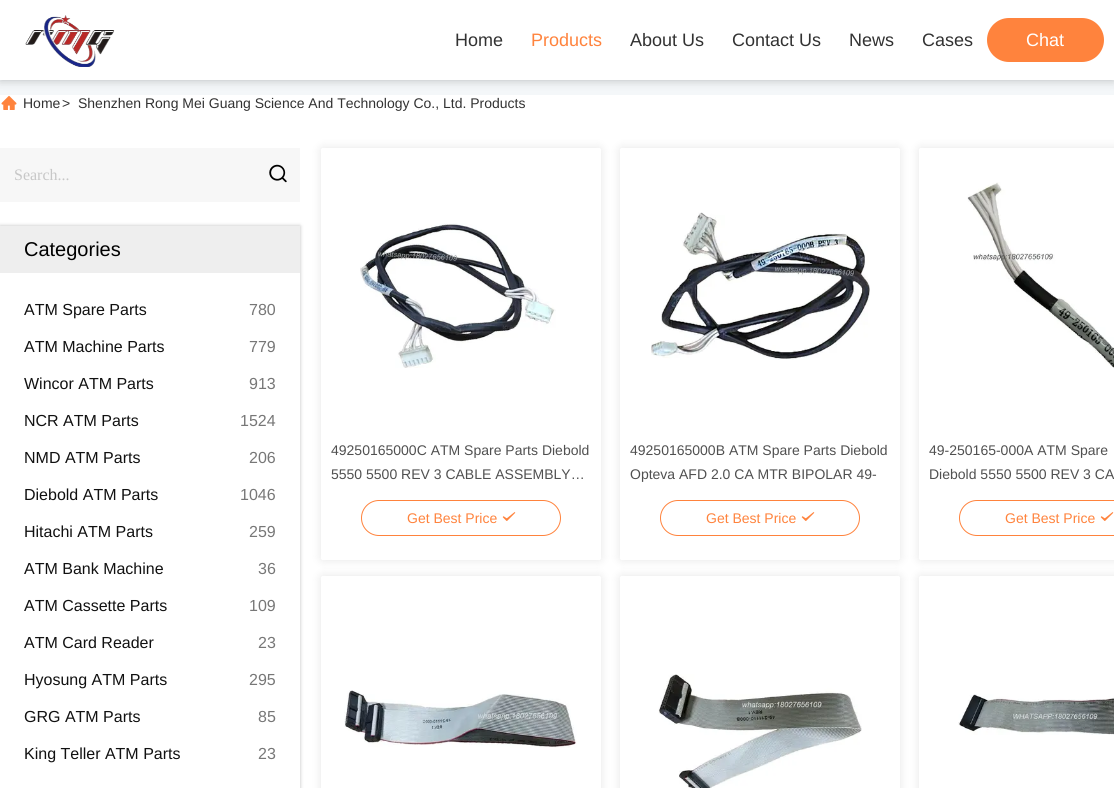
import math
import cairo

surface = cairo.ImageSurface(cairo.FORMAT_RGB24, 1114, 788)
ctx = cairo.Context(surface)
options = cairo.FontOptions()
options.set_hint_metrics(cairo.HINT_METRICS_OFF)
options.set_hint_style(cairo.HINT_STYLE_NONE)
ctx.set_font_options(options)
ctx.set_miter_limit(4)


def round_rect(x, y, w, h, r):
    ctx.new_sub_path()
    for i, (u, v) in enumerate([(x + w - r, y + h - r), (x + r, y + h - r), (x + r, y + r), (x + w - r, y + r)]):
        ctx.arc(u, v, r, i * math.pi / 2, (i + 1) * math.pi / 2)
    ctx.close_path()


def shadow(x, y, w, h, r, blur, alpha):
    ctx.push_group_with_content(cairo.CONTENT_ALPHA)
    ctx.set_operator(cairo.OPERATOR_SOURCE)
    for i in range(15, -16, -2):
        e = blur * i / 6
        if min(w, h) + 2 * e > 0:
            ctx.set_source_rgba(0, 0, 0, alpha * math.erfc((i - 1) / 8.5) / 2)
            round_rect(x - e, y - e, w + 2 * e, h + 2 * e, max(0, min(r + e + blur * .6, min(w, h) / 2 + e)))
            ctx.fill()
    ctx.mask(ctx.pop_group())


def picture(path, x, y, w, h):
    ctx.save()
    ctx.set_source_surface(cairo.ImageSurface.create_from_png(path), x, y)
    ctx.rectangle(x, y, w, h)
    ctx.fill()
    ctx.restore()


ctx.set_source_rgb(0.957, 0.965, 0.976)
ctx.paint()
ctx.set_source_rgb(1, 1, 1)
ctx.rectangle(0, 95, 1114, 693)
ctx.fill()
picture("img2.png", 1, 95, 16, 15)
ctx.set_source_rgb(0, 0, 0)
shadow(0, 0, 1114, 80, 0, 5, 0.25)
ctx.set_source_rgb(1, 1, 1)
ctx.rectangle(0, 0, 1114, 80)
ctx.fill()
picture("img1.png", 25, 15, 90, 52)
ctx.select_font_face("Liberation Sans")
ctx.set_font_size(18)
ctx.set_source_rgb(0.196, 0.196, 0.196)
ctx.move_to(455, 46)
ctx.show_text("Home")
ctx.set_source_rgb(1, 0.514, 0.239)
ctx.move_to(531, 46)
ctx.show_text("Products")
ctx.set_source_rgb(0.196, 0.196, 0.196)
ctx.move_to(630, 46)
ctx.show_text("About Us")
ctx.move_to(732, 46)
ctx.show_text("Contact Us")
ctx.move_to(849, 46)
ctx.show_text("News")
ctx.move_to(922, 46)
ctx.show_text("Cases")
ctx.set_source_rgb(1, 0.514, 0.239)
round_rect(987, 18, 117, 44, 22)
ctx.fill()
ctx.set_source_rgb(1, 1, 1)
ctx.move_to(1026, 46)
ctx.show_text("Chat")
ctx.set_font_size(14)
ctx.set_source_rgb(0.196, 0.196, 0.196)
ctx.move_to(23, 108)
ctx.show_text("Home")
ctx.move_to(62, 108)
ctx.show_text(">")
ctx.move_to(78, 108)
ctx.show_text("Shenzhen Rong Mei Guang Science And Technology Co., Ltd. Products")
ctx.set_source_rgb(0.965, 0.965, 0.965)
ctx.rectangle(0, 148, 300, 54)
ctx.fill()
ctx.select_font_face("Liberation Serif")
ctx.set_font_size(16)
ctx.set_source_rgb(0.78, 0.78, 0.78)
ctx.move_to(14, 180)
ctx.show_text("Search...")
picture("img3.png", 269, 164, 18, 19)
ctx.save()
ctx.set_fill_rule(cairo.FILL_RULE_EVEN_ODD)
ctx.new_path()
ctx.move_to(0, 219)
ctx.line_to(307, 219)
ctx.line_to(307, 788)
ctx.line_to(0, 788)
ctx.close_path()
ctx.move_to(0, 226)
ctx.line_to(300, 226)
ctx.line_to(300, 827)
ctx.line_to(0, 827)
ctx.close_path()
ctx.clip()
ctx.set_source_rgb(0, 0, 0)
shadow(0, 226, 300, 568, 0, 2, 0.25)
ctx.restore()
ctx.set_source_rgb(0.933, 0.933, 0.933)
ctx.rectangle(0, 226, 300, 47)
ctx.fill()
ctx.select_font_face("Liberation Sans")
ctx.set_font_size(20)
ctx.set_source_rgb(0, 0, 0)
ctx.move_to(24, 256)
ctx.show_text("Categories")
ctx.set_font_size(16)
ctx.set_source_rgb(0.067, 0.067, 0.067)
ctx.move_to(24, 315)
ctx.show_text("ATM Spare Parts")
ctx.set_source_rgb(0.467, 0.467, 0.467)
ctx.move_to(249, 315)
ctx.show_text("780")
ctx.set_source_rgb(0.067, 0.067, 0.067)
ctx.move_to(24, 352)
ctx.show_text("ATM Machine Parts")
ctx.set_source_rgb(0.467, 0.467, 0.467)
ctx.move_to(249, 352)
ctx.show_text("779")
ctx.set_source_rgb(0.067, 0.067, 0.067)
ctx.move_to(24, 389)
ctx.show_text("Wincor ATM Parts")
ctx.set_source_rgb(0.467, 0.467, 0.467)
ctx.move_to(249, 389)
ctx.show_text("913")
ctx.set_source_rgb(0.067, 0.067, 0.067)
ctx.move_to(24, 426)
ctx.show_text("NCR ATM Parts")
ctx.set_source_rgb(0.467, 0.467, 0.467)
ctx.move_to(240, 426)
ctx.show_text("1524")
ctx.set_source_rgb(0.067, 0.067, 0.067)
ctx.move_to(24, 463)
ctx.show_text("NMD ATM Parts")
ctx.set_source_rgb(0.467, 0.467, 0.467)
ctx.move_to(249, 463)
ctx.show_text("206")
ctx.set_source_rgb(0.067, 0.067, 0.067)
ctx.move_to(24, 500)
ctx.show_text("Diebold ATM Parts")
ctx.set_source_rgb(0.467, 0.467, 0.467)
ctx.move_to(240, 500)
ctx.show_text("1046")
ctx.set_source_rgb(0.067, 0.067, 0.067)
ctx.move_to(24, 537)
ctx.show_text("Hitachi ATM Parts")
ctx.set_source_rgb(0.467, 0.467, 0.467)
ctx.move_to(249, 537)
ctx.show_text("259")
ctx.set_source_rgb(0.067, 0.067, 0.067)
ctx.move_to(24, 574)
ctx.show_text("ATM Bank Machine")
ctx.set_source_rgb(0.467, 0.467, 0.467)
ctx.move_to(258, 574)
ctx.show_text("36")
ctx.set_source_rgb(0.067, 0.067, 0.067)
ctx.move_to(24, 611)
ctx.show_text("ATM Cassette Parts")
ctx.set_source_rgb(0.467, 0.467, 0.467)
ctx.move_to(249, 611)
ctx.show_text("109")
ctx.set_source_rgb(0.067, 0.067, 0.067)
ctx.move_to(24, 648)
ctx.show_text("ATM Card Reader")
ctx.set_source_rgb(0.467, 0.467, 0.467)
ctx.move_to(258, 648)
ctx.show_text("23")
ctx.set_source_rgb(0.067, 0.067, 0.067)
ctx.move_to(24, 685)
ctx.show_text("Hyosung ATM Parts")
ctx.set_source_rgb(0.467, 0.467, 0.467)
ctx.move_to(249, 685)
ctx.show_text("295")
ctx.set_source_rgb(0.067, 0.067, 0.067)
ctx.move_to(24, 722)
ctx.show_text("GRG ATM Parts")
ctx.set_source_rgb(0.467, 0.467, 0.467)
ctx.move_to(258, 722)
ctx.show_text("85")
ctx.set_source_rgb(0.067, 0.067, 0.067)
ctx.move_to(24, 759)
ctx.show_text("King Teller ATM Parts")
ctx.set_source_rgb(0.467, 0.467, 0.467)
ctx.move_to(258, 759)
ctx.show_text("23")
ctx.save()
ctx.set_fill_rule(cairo.FILL_RULE_EVEN_ODD)
ctx.new_path()
ctx.move_to(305, 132)
ctx.line_to(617, 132)
ctx.line_to(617, 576)
ctx.line_to(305, 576)
ctx.close_path()
ctx.move_to(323, 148)
ctx.line_to(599, 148)
ctx.curve_to(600, 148, 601, 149, 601, 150)
ctx.line_to(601, 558)
ctx.curve_to(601, 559, 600, 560, 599, 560)
ctx.line_to(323, 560)
ctx.curve_to(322, 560, 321, 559, 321, 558)
ctx.line_to(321, 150)
ctx.curve_to(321, 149, 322, 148, 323, 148)
ctx.close_path()
ctx.clip()
ctx.set_source_rgb(0, 0, 0)
shadow(321, 148, 280, 412, 2, 5, 0.1)
ctx.restore()
picture("img4.png", 360, 223, 196, 145)
ctx.set_font_size(14)
ctx.set_source_rgb(0.314, 0.314, 0.314)
ctx.move_to(331, 455)
ctx.show_text("49250165000C ATM Spare Parts Diebold")
ctx.move_to(331, 479)
ctx.show_text("5550 5500 REV 3 CABLE ASSEMBLY…")
round_rect(361.5, 500.5, 199, 35, 17.5)
ctx.set_source_rgb(1, 0.514, 0.239)
ctx.set_line_width(1)
ctx.stroke()
ctx.move_to(407, 523)
ctx.show_text("Get Best Price")
picture("img5.png", 502, 512, 14, 9)
ctx.save()
ctx.set_fill_rule(cairo.FILL_RULE_EVEN_ODD)
ctx.new_path()
ctx.move_to(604, 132)
ctx.line_to(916, 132)
ctx.line_to(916, 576)
ctx.line_to(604, 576)
ctx.close_path()
ctx.move_to(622, 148)
ctx.line_to(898, 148)
ctx.curve_to(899, 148, 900, 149, 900, 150)
ctx.line_to(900, 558)
ctx.curve_to(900, 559, 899, 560, 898, 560)
ctx.line_to(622, 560)
ctx.curve_to(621, 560, 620, 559, 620, 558)
ctx.line_to(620, 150)
ctx.curve_to(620, 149, 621, 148, 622, 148)
ctx.close_path()
ctx.clip()
ctx.set_source_rgb(0, 0, 0)
shadow(620, 148, 280, 412, 2, 5, 0.1)
ctx.restore()
picture("img6.png", 651, 212, 219, 148)
ctx.set_source_rgb(0.314, 0.314, 0.314)
ctx.move_to(630, 455)
ctx.show_text("49250165000B ATM Spare Parts Diebold")
ctx.move_to(630, 479)
ctx.show_text("Opteva AFD 2.0 CA MTR BIPOLAR 49-")
round_rect(660.5, 500.5, 199, 35, 17.5)
ctx.set_source_rgb(1, 0.514, 0.239)
ctx.stroke()
ctx.move_to(706, 523)
ctx.show_text("Get Best Price")
picture("img5.png", 801, 512, 14, 9)
ctx.save()
ctx.set_fill_rule(cairo.FILL_RULE_EVEN_ODD)
ctx.new_path()
ctx.move_to(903, 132)
ctx.line_to(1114, 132)
ctx.line_to(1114, 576)
ctx.line_to(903, 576)
ctx.close_path()
ctx.move_to(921, 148)
ctx.line_to(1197, 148)
ctx.curve_to(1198, 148, 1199, 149, 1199, 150)
ctx.line_to(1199, 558)
ctx.curve_to(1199, 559, 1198, 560, 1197, 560)
ctx.line_to(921, 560)
ctx.curve_to(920, 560, 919, 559, 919, 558)
ctx.line_to(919, 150)
ctx.curve_to(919, 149, 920, 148, 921, 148)
ctx.close_path()
ctx.clip()
ctx.set_source_rgb(0, 0, 0)
shadow(919, 148, 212, 412, 2, 5, 0.1)
ctx.restore()
picture("img7.png", 967, 182, 147, 186)
ctx.set_source_rgb(0.314, 0.314, 0.314)
ctx.move_to(929, 455)
ctx.show_text("49-250165-000A ATM Spare")
ctx.move_to(929, 479)
ctx.show_text("Diebold 5550 5500 REV 3 CA")
round_rect(959.5, 500.5, 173, 35, 17.5)
ctx.set_source_rgb(1, 0.514, 0.239)
ctx.stroke()
ctx.move_to(1005, 523)
ctx.show_text("Get Best Price")
picture("img5.png", 1100, 512, 14, 9)
ctx.save()
ctx.set_fill_rule(cairo.FILL_RULE_EVEN_ODD)
ctx.new_path()
ctx.move_to(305, 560)
ctx.line_to(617, 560)
ctx.line_to(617, 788)
ctx.line_to(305, 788)
ctx.close_path()
ctx.move_to(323, 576)
ctx.line_to(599, 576)
ctx.curve_to(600, 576, 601, 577, 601, 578)
ctx.line_to(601, 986)
ctx.curve_to(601, 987, 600, 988, 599, 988)
ctx.line_to(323, 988)
ctx.curve_to(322, 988, 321, 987, 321, 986)
ctx.line_to(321, 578)
ctx.curve_to(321, 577, 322, 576, 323, 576)
ctx.close_path()
ctx.clip()
ctx.set_source_rgb(0, 0, 0)
shadow(321, 576, 280, 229, 2, 5, 0.1)
ctx.restore()
picture("img8.png", 344, 690, 233, 58)
ctx.save()
ctx.set_fill_rule(cairo.FILL_RULE_EVEN_ODD)
ctx.new_path()
ctx.move_to(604, 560)
ctx.line_to(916, 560)
ctx.line_to(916, 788)
ctx.line_to(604, 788)
ctx.close_path()
ctx.move_to(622, 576)
ctx.line_to(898, 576)
ctx.curve_to(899, 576, 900, 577, 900, 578)
ctx.line_to(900, 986)
ctx.curve_to(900, 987, 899, 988, 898, 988)
ctx.line_to(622, 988)
ctx.curve_to(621, 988, 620, 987, 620, 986)
ctx.line_to(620, 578)
ctx.curve_to(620, 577, 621, 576, 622, 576)
ctx.close_path()
ctx.clip()
ctx.set_source_rgb(0, 0, 0)
shadow(620, 576, 280, 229, 2, 5, 0.1)
ctx.restore()
picture("img9.png", 658, 674, 204, 114)
ctx.save()
ctx.set_fill_rule(cairo.FILL_RULE_EVEN_ODD)
ctx.new_path()
ctx.move_to(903, 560)
ctx.line_to(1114, 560)
ctx.line_to(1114, 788)
ctx.line_to(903, 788)
ctx.close_path()
ctx.move_to(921, 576)
ctx.line_to(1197, 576)
ctx.curve_to(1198, 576, 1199, 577, 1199, 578)
ctx.line_to(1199, 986)
ctx.curve_to(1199, 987, 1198, 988, 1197, 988)
ctx.line_to(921, 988)
ctx.curve_to(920, 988, 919, 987, 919, 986)
ctx.line_to(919, 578)
ctx.curve_to(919, 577, 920, 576, 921, 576)
ctx.close_path()
ctx.clip()
ctx.set_source_rgb(0, 0, 0)
shadow(919, 576, 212, 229, 2, 5, 0.1)
ctx.restore()
picture("img10.png", 958, 694, 156, 41)
surface.write_to_png("page.png")
